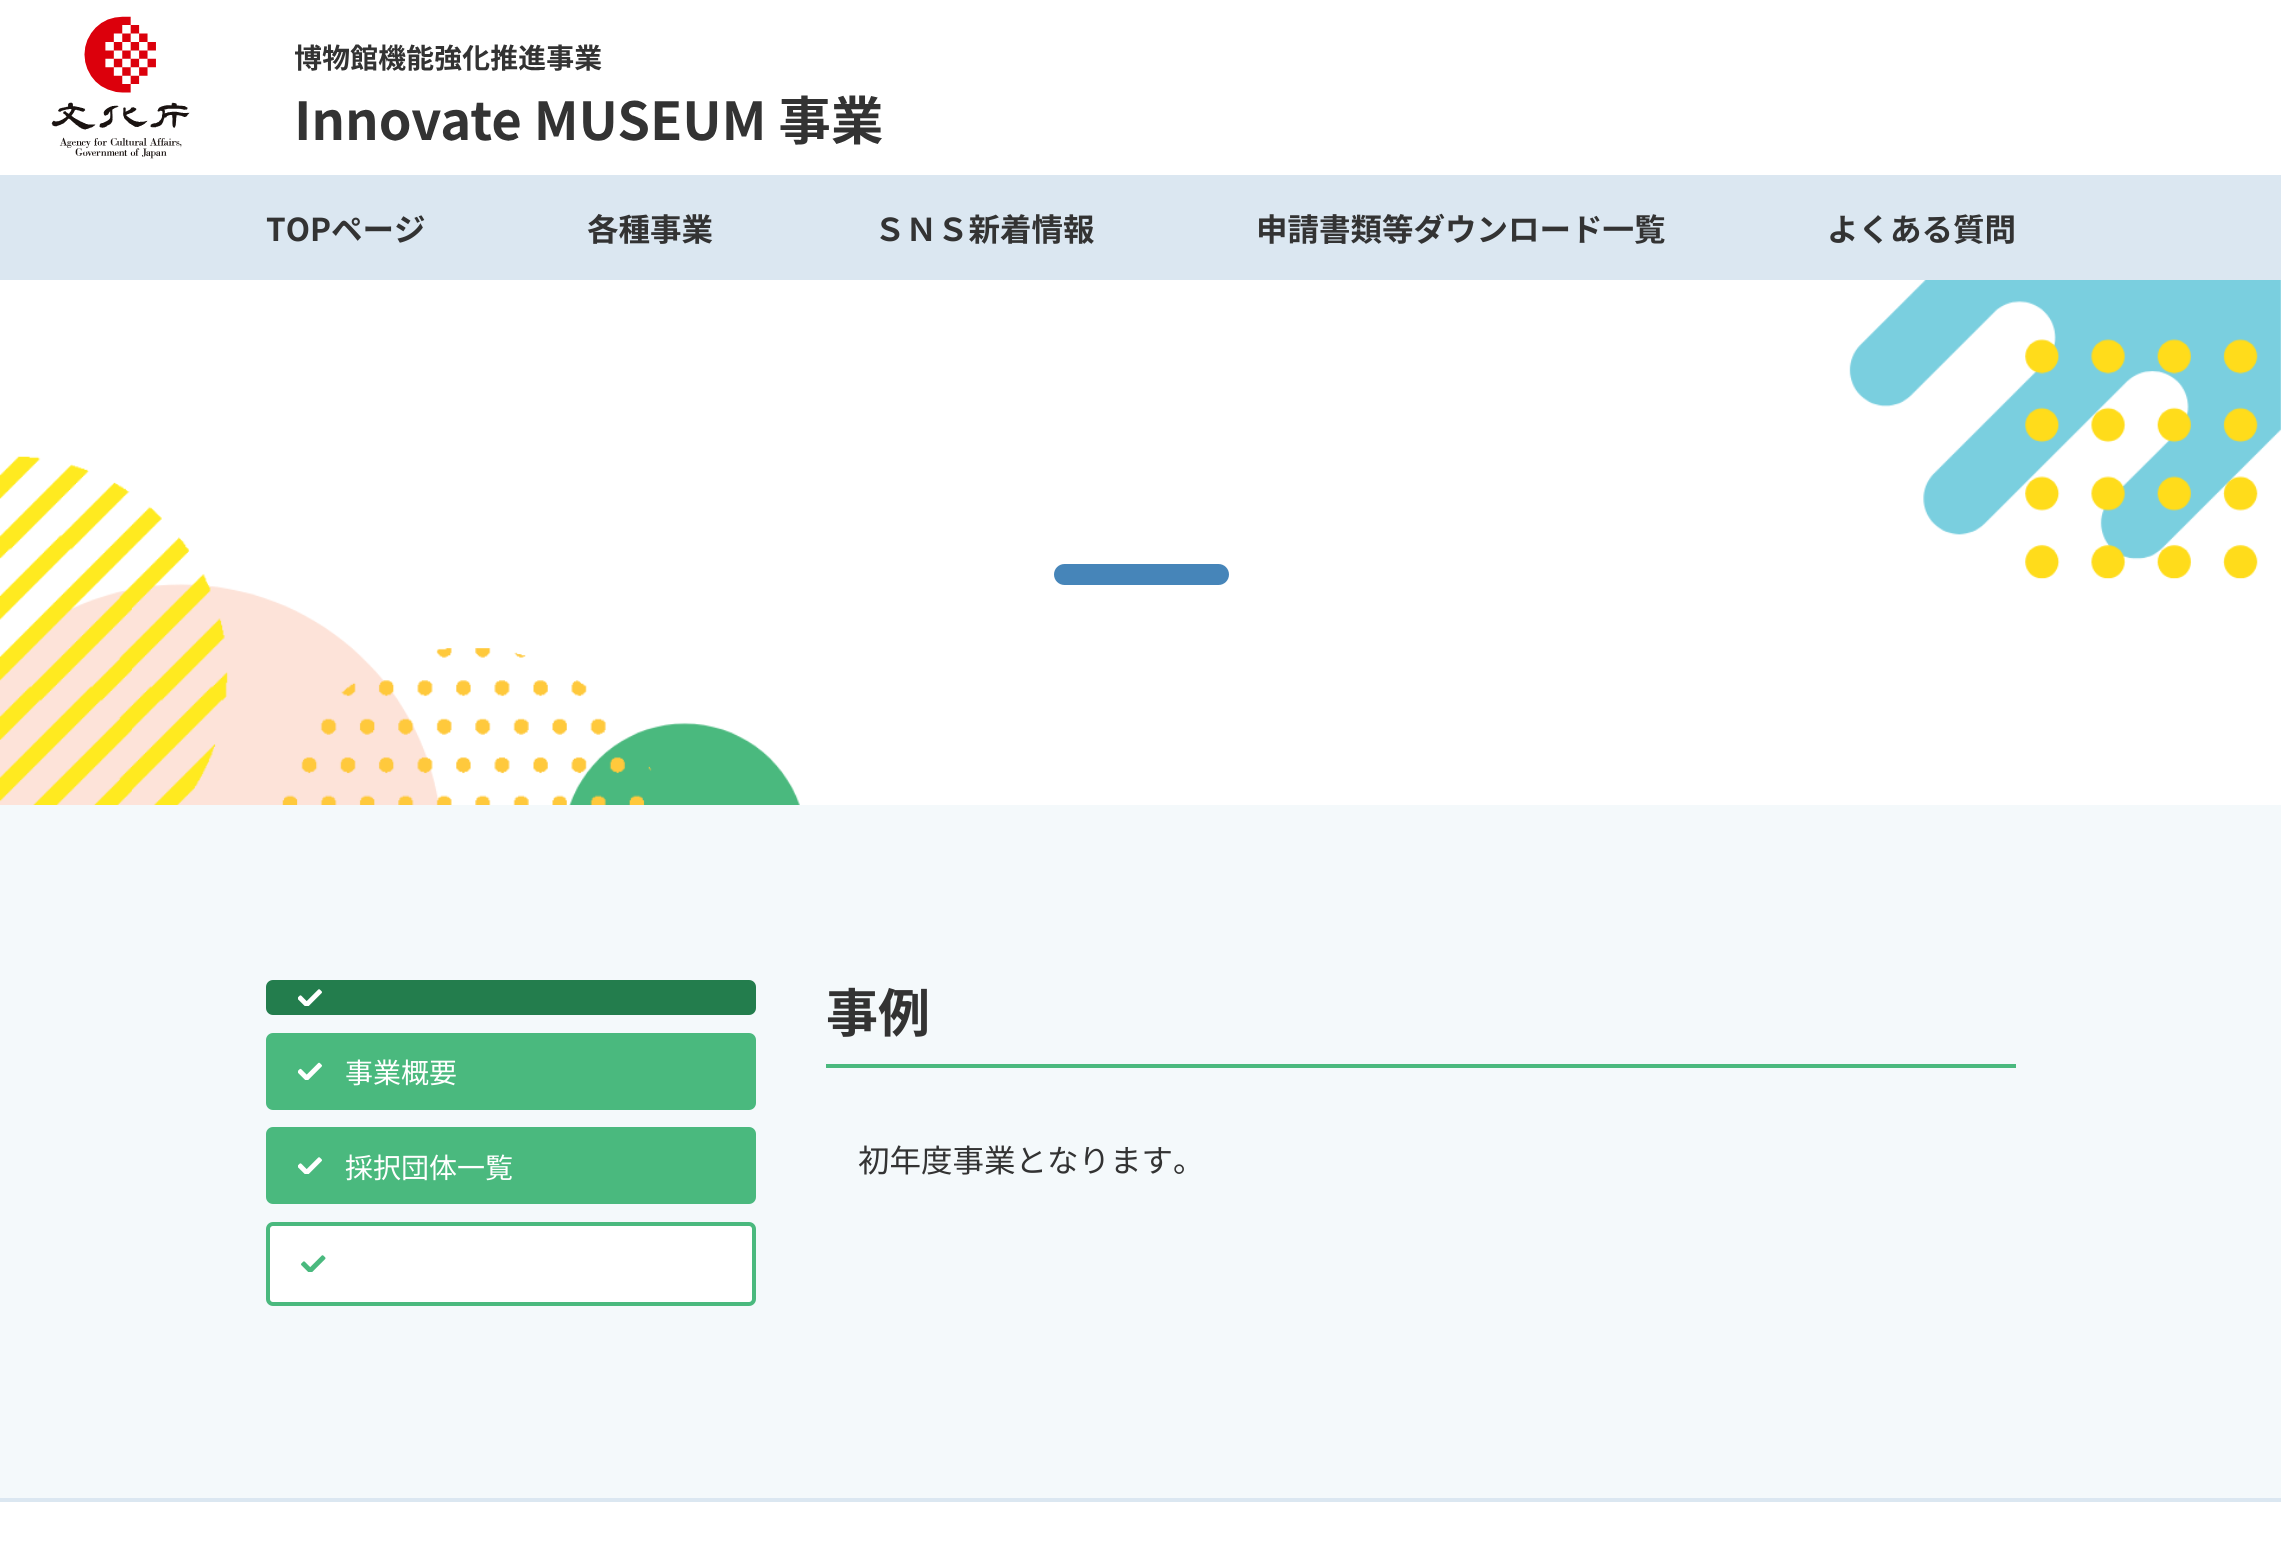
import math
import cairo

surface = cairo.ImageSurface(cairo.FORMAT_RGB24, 2281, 1551)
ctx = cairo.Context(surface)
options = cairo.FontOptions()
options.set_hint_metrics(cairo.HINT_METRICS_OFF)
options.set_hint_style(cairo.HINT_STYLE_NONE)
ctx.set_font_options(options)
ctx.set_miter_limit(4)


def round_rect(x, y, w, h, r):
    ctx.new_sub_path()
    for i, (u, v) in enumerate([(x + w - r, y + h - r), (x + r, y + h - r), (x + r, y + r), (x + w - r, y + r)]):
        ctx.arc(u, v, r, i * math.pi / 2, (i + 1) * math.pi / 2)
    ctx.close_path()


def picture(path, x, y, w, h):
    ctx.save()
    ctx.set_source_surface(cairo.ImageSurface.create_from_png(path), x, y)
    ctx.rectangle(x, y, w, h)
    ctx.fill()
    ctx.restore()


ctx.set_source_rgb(1, 1, 1)
ctx.paint()
picture("img1.png", 51, 16, 831, 143)
ctx.set_source_rgb(0.859, 0.906, 0.945)
ctx.rectangle(0, 175, 2281, 105)
ctx.fill()
ctx.select_font_face("Noto Sans JP", cairo.FONT_SLANT_NORMAL, cairo.FONT_WEIGHT_BOLD)
ctx.set_font_size(31.5)
ctx.set_source_rgb(0.2, 0.2, 0.2)
ctx.move_to(266, 241)
ctx.show_text("TOPページ")
ctx.move_to(587, 241)
ctx.show_text("各種事業")
ctx.move_to(874, 241)
ctx.show_text("ＳＮＳ新着情報")
ctx.move_to(1256, 241)
ctx.show_text("申請書類等ダウンロード一覧")
ctx.move_to(1827, 241)
ctx.show_text("よくある質問")
picture("img2.png", 0, 456, 800, 349)
ctx.set_source_rgb(0.275, 0.522, 0.725)
round_rect(1054, 564, 175, 21, 10.5)
ctx.fill()
picture("img3.png", 1849, 280, 432, 299)
ctx.set_source_rgb(0.957, 0.973, 0.984)
ctx.rectangle(0, 805, 2281, 693)
ctx.fill()
ctx.set_source_rgb(0.137, 0.49, 0.302)
round_rect(266, 980, 490, 35, 7)
ctx.fill()
picture("img4.png", 298, 989, 24, 17)
ctx.set_source_rgb(0.29, 0.725, 0.494)
round_rect(266, 1033, 490, 77, 7)
ctx.fill()
picture("img5.png", 298, 1062, 24, 18)
ctx.select_font_face("Noto Sans JP")
ctx.set_font_size(28)
ctx.set_source_rgb(1, 1, 1)
ctx.move_to(345, 1083)
ctx.show_text("事業概要")
ctx.set_source_rgb(0.29, 0.725, 0.494)
round_rect(266, 1127, 490, 77, 7)
ctx.fill()
picture("img6.png", 298, 1157, 24, 17)
ctx.set_source_rgb(1, 1, 1)
ctx.move_to(345, 1178)
ctx.show_text("採択団体一覧")
round_rect(268, 1224, 486, 80, 5)
ctx.fill_preserve()
ctx.set_source_rgb(0.29, 0.725, 0.494)
ctx.set_line_width(4)
ctx.stroke()
picture("img7.png", 301, 1255, 25, 17)
ctx.rectangle(826, 1064, 1190, 4)
ctx.fill()
ctx.select_font_face("Noto Sans JP", cairo.FONT_SLANT_NORMAL, cairo.FONT_WEIGHT_BOLD)
ctx.set_font_size(52)
ctx.set_source_rgb(0.2, 0.2, 0.2)
ctx.move_to(826, 1032)
ctx.show_text("事例")
ctx.select_font_face("Noto Sans JP")
ctx.set_font_size(31.5)
ctx.move_to(858, 1172)
ctx.show_text("初年度事業となります。")
ctx.set_source_rgb(0.859, 0.906, 0.945)
ctx.rectangle(0, 1498, 2281, 4)
ctx.fill()
surface.write_to_png("page.png")
